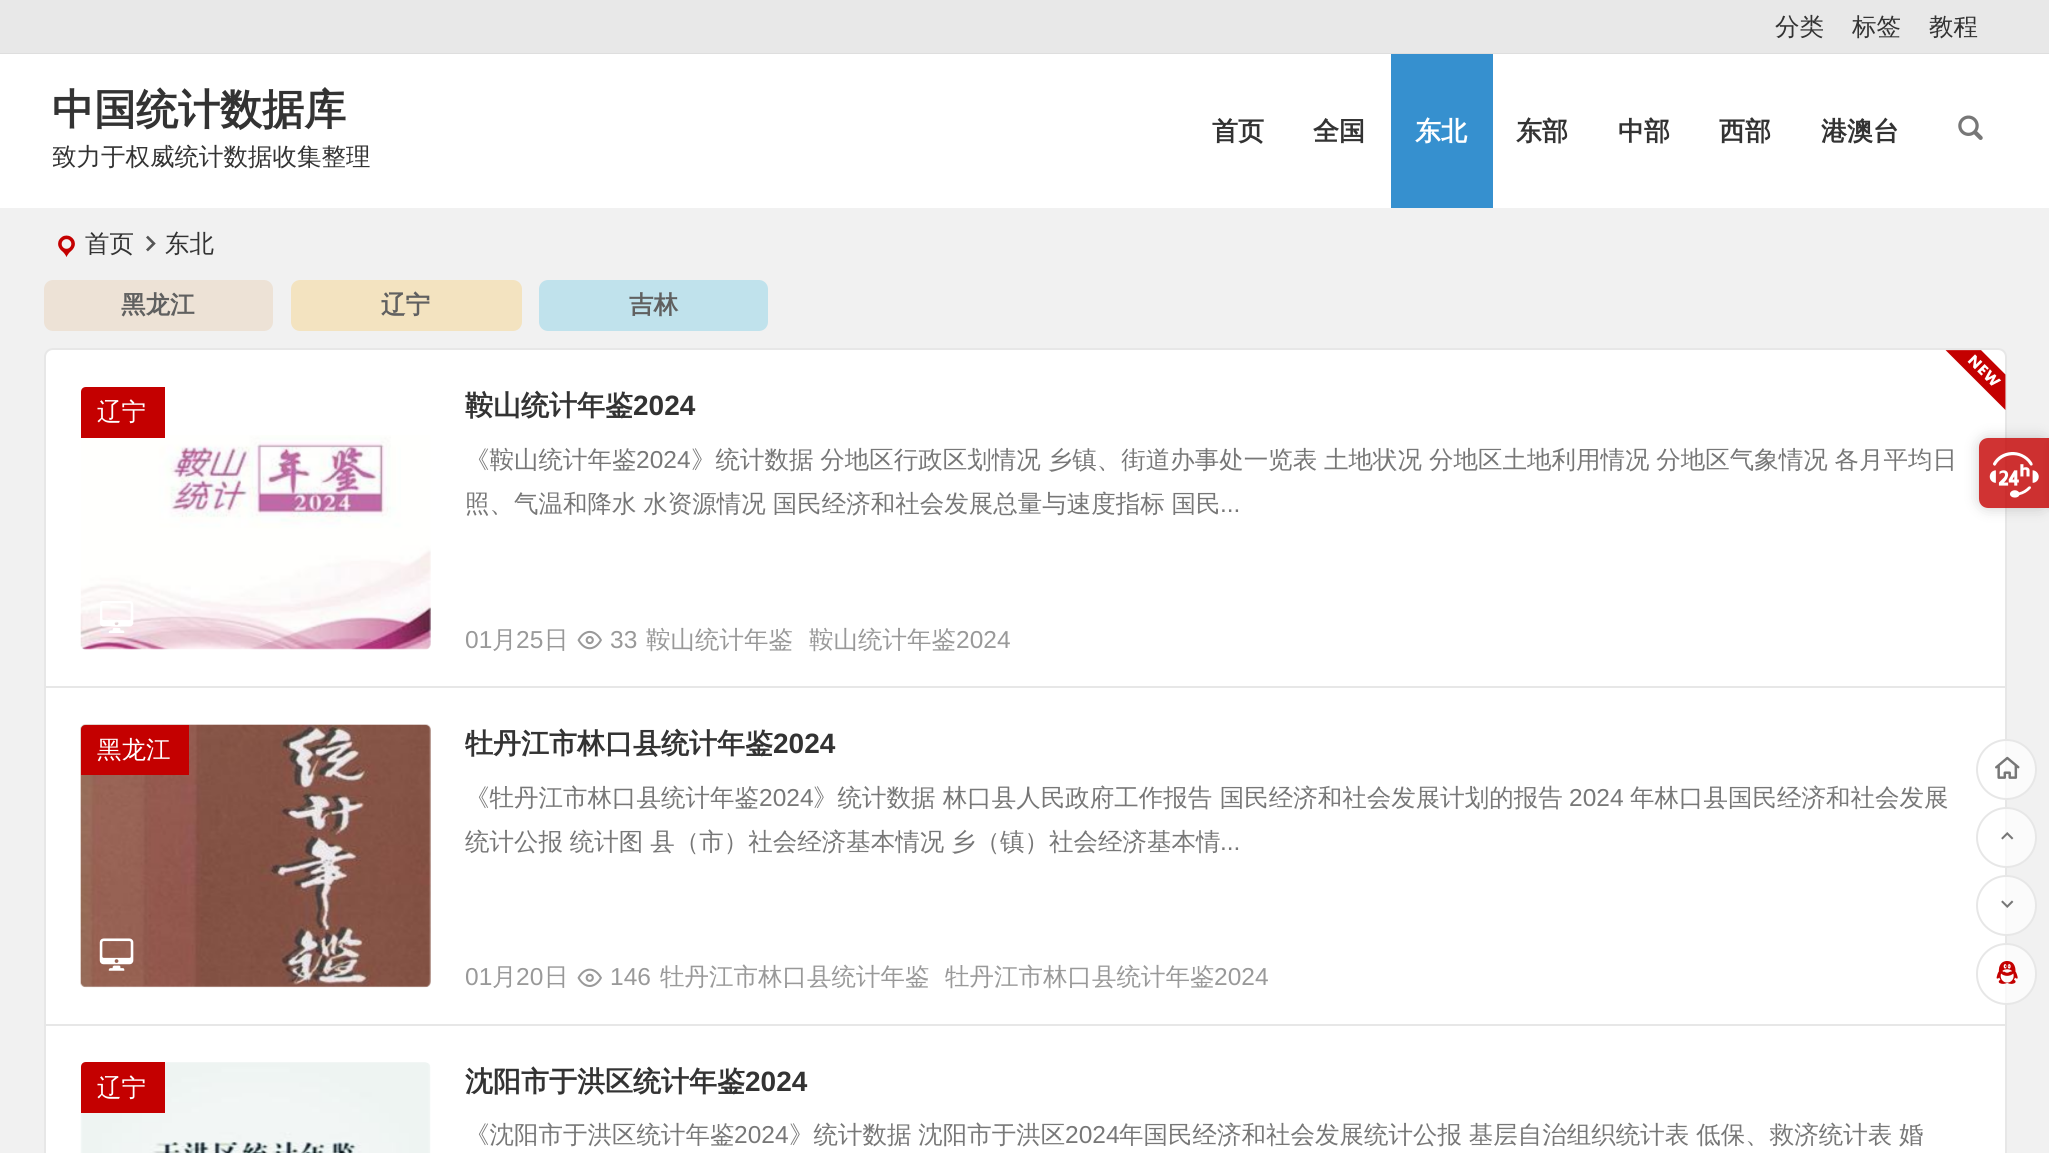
import math
import cairo

surface = cairo.ImageSurface(cairo.FORMAT_RGB24, 2049, 1153)
ctx = cairo.Context(surface)
options = cairo.FontOptions()
options.set_hint_metrics(cairo.HINT_METRICS_OFF)
options.set_hint_style(cairo.HINT_STYLE_NONE)
ctx.set_font_options(options)
ctx.set_miter_limit(4)


def spaced_text(x, y, s, letter, word):
    ctx.move_to(x, y)
    for ch in s:
        ctx.show_text(ch)
        ctx.rel_move_to(letter + word * (ch == ' '), 0)


def round_rect(x, y, w, h, r):
    ctx.new_sub_path()
    for i, (u, v) in enumerate([(x + w - r, y + h - r), (x + r, y + h - r), (x + r, y + r), (x + w - r, y + r)]):
        ctx.arc(u, v, r, i * math.pi / 2, (i + 1) * math.pi / 2)
    ctx.close_path()


def shadow(x, y, w, h, r, blur, alpha):
    ctx.push_group_with_content(cairo.CONTENT_ALPHA)
    ctx.set_operator(cairo.OPERATOR_SOURCE)
    for i in range(15, -16, -2):
        e = blur * i / 6
        if min(w, h) + 2 * e > 0:
            ctx.set_source_rgba(0, 0, 0, alpha * math.erfc((i - 1) / 8.5) / 2)
            round_rect(x - e, y - e, w + 2 * e, h + 2 * e, max(0, min(r + e + blur * .6, min(w, h) / 2 + e)))
            ctx.fill()
    ctx.mask(ctx.pop_group())


def picture(path, x, y, w, h):
    ctx.save()
    ctx.set_source_surface(cairo.ImageSurface.create_from_png(path), x, y)
    ctx.rectangle(x, y, w, h)
    ctx.fill()
    ctx.restore()


ctx.set_source_rgb(0.945, 0.945, 0.945)
ctx.paint()
ctx.set_source_rgb(0.91, 0.91, 0.91)
ctx.rectangle(0, 0, 2049, 53)
ctx.fill()
ctx.set_source_rgb(0.871, 0.871, 0.871)
ctx.rectangle(0, 53, 2049, 1)
ctx.fill()
ctx.select_font_face("WenQuanYi Zen Hei Medium")
ctx.set_font_size(24.5)
ctx.set_source_rgb(0.2, 0.2, 0.2)
ctx.move_to(1775, 35)
ctx.show_text("分类")
ctx.move_to(1852, 35)
ctx.show_text("标签")
ctx.move_to(1929, 35)
ctx.show_text("教程")
ctx.set_source_rgb(1, 1, 1)
ctx.rectangle(0, 54, 2049, 154)
ctx.fill()
ctx.select_font_face("WenQuanYi Zen Hei", cairo.FONT_SLANT_NORMAL, cairo.FONT_WEIGHT_BOLD)
ctx.set_font_size(42)
ctx.set_source_rgb(0.2, 0.2, 0.2)
ctx.move_to(52, 124)
ctx.show_text("中国统计数据库")
ctx.save()
ctx.rectangle(53, 88, 318, 87)
ctx.clip()
ctx.select_font_face("WenQuanYi Zen Hei Medium")
ctx.set_font_size(24.5)
ctx.move_to(52, 165)
ctx.show_text("致力于权威统计数据收集整理")
ctx.restore()
ctx.set_font_size(26)
ctx.move_to(1212, 140)
ctx.show_text("首页")
ctx.move_to(1313, 140)
ctx.show_text("全国")
ctx.set_source_rgb(0.212, 0.565, 0.812)
ctx.rectangle(1391, 54, 102, 154)
ctx.fill()
ctx.set_source_rgb(1, 1, 1)
ctx.move_to(1415, 140)
ctx.show_text("东北")
ctx.set_source_rgb(0.2, 0.2, 0.2)
ctx.move_to(1516, 140)
ctx.show_text("东部")
ctx.move_to(1618, 140)
ctx.show_text("中部")
ctx.move_to(1719, 140)
ctx.show_text("西部")
ctx.move_to(1821, 140)
ctx.show_text("港澳台")
picture("img1.png", 1958, 115, 25, 25)
picture("img2.png", 58, 235, 17, 22)
ctx.select_font_face("WenQuanYi Zen Hei Medium")
ctx.set_font_size(24.5)
ctx.move_to(85, 252)
ctx.show_text("首页")
picture("img3.png", 146, 235, 10, 17)
ctx.move_to(165, 252)
ctx.show_text("东北")
ctx.set_source_rgb(0.929, 0.886, 0.839)
round_rect(44, 280, 229, 51, 9)
ctx.fill()
ctx.select_font_face("WenQuanYi Zen Hei", cairo.FONT_SLANT_NORMAL, cairo.FONT_WEIGHT_BOLD)
ctx.set_source_rgb(0.376, 0.376, 0.376)
ctx.move_to(121, 313)
ctx.show_text("黑龙江")
ctx.set_source_rgb(0.953, 0.89, 0.753)
round_rect(291, 280, 231, 51, 9)
ctx.fill()
ctx.set_source_rgb(0.376, 0.376, 0.376)
ctx.move_to(381, 313)
ctx.show_text("辽宁")
ctx.set_source_rgb(0.753, 0.886, 0.925)
round_rect(539, 280, 229, 51, 9)
ctx.fill()
ctx.set_source_rgb(0.376, 0.376, 0.376)
ctx.move_to(629, 313)
ctx.show_text("吉林")
ctx.set_source_rgb(1, 1, 1)
ctx.new_path()
ctx.move_to(53, 349)
ctx.line_to(1998, 349)
ctx.curve_to(2002.5, 349, 2006, 352.5, 2006, 357)
ctx.line_to(2006, 687)
ctx.line_to(45, 687)
ctx.line_to(45, 357)
ctx.curve_to(45, 352.5, 48.5, 349, 53, 349)
ctx.close_path()
ctx.fill_preserve()
ctx.set_source_rgb(0.906, 0.906, 0.906)
ctx.stroke()
picture("img4.png", 80, 435, 351, 215)
ctx.set_source_rgb(0.769, 0, 0)
ctx.new_path()
ctx.move_to(86, 387)
ctx.line_to(165, 387)
ctx.line_to(165, 438)
ctx.line_to(81, 438)
ctx.line_to(81, 392)
ctx.curve_to(81, 389, 83, 387, 86, 387)
ctx.close_path()
ctx.fill()
ctx.select_font_face("WenQuanYi Zen Hei Medium")
ctx.set_source_rgb(1, 1, 1)
ctx.move_to(97, 420)
ctx.show_text("辽宁")
ctx.select_font_face("WenQuanYi Zen Hei", cairo.FONT_SLANT_NORMAL, cairo.FONT_WEIGHT_BOLD)
ctx.set_font_size(28)
ctx.set_source_rgb(0.2, 0.2, 0.2)
ctx.move_to(465, 415)
ctx.show_text("鞍山统计年鉴")
ctx.select_font_face("Liberation Sans", cairo.FONT_SLANT_NORMAL, cairo.FONT_WEIGHT_BOLD)
ctx.move_to(633, 415)
ctx.show_text("2024")
picture("img5.png", 1945, 350, 61, 60)
ctx.select_font_face("WenQuanYi Zen Hei Medium")
ctx.set_font_size(24.5)
ctx.set_source_rgb(0.467, 0.467, 0.467)
ctx.move_to(465, 468)
ctx.show_text("《鞍山统计年鉴")
ctx.select_font_face("Liberation Sans")
ctx.move_to(636, 468)
ctx.show_text("2024")
ctx.select_font_face("WenQuanYi Zen Hei Medium")
spaced_text(691, 468, "》统计数据 分地区行政区划情况 乡镇、街道办事处一览表 土地状况 分地区土地利用情况 分地区气象情况 各月平均日", 0, -0.5)
spaced_text(465, 512, "照、气温和降水 水资源情况 国民经济和社会发展总量与速度指标 国民", 0, -0.5)
ctx.select_font_face("Liberation Sans")
ctx.move_to(1220, 512)
ctx.show_text("...")
picture("img6.png", 100, 601, 34, 32)
ctx.set_source_rgb(0.6, 0.6, 0.6)
ctx.move_to(465, 648)
ctx.show_text("01")
ctx.select_font_face("WenQuanYi Zen Hei Medium")
ctx.move_to(492, 648)
ctx.show_text("月")
ctx.select_font_face("Liberation Sans")
ctx.move_to(516, 648)
ctx.show_text("25")
ctx.select_font_face("WenQuanYi Zen Hei Medium")
ctx.move_to(544, 648)
ctx.show_text("日")
picture("img7.png", 577, 630, 25, 20)
ctx.select_font_face("Liberation Sans")
ctx.move_to(610, 648)
ctx.show_text("33")
ctx.select_font_face("WenQuanYi Zen Hei Medium")
ctx.move_to(646, 648)
ctx.show_text("鞍山统计年鉴")
ctx.move_to(809, 648)
ctx.show_text("鞍山统计年鉴")
ctx.select_font_face("Liberation Sans")
ctx.move_to(956, 648)
ctx.show_text("2024")
ctx.set_source_rgb(1, 1, 1)
ctx.rectangle(45, 687, 1961, 338)
ctx.fill_preserve()
ctx.set_source_rgb(0.906, 0.906, 0.906)
ctx.stroke()
picture("img8.png", 80, 724, 351, 264)
ctx.set_source_rgb(0.769, 0, 0)
ctx.new_path()
ctx.move_to(86, 725)
ctx.line_to(189, 725)
ctx.line_to(189, 775)
ctx.line_to(81, 775)
ctx.line_to(81, 730)
ctx.curve_to(81, 727, 83, 725, 86, 725)
ctx.close_path()
ctx.fill()
ctx.select_font_face("WenQuanYi Zen Hei Medium")
ctx.set_source_rgb(1, 1, 1)
ctx.move_to(97, 758)
ctx.show_text("黑龙江")
ctx.select_font_face("WenQuanYi Zen Hei", cairo.FONT_SLANT_NORMAL, cairo.FONT_WEIGHT_BOLD)
ctx.set_font_size(28)
ctx.set_source_rgb(0.2, 0.2, 0.2)
ctx.move_to(465, 753)
ctx.show_text("牡丹江市林口县统计年鉴")
ctx.select_font_face("Liberation Sans", cairo.FONT_SLANT_NORMAL, cairo.FONT_WEIGHT_BOLD)
ctx.move_to(773, 753)
ctx.show_text("2024")
ctx.select_font_face("WenQuanYi Zen Hei Medium")
ctx.set_font_size(24.5)
ctx.set_source_rgb(0.467, 0.467, 0.467)
ctx.move_to(465, 806)
ctx.show_text("《牡丹江市林口县统计年鉴")
ctx.select_font_face("Liberation Sans")
ctx.move_to(759, 806)
ctx.show_text("2024")
ctx.select_font_face("WenQuanYi Zen Hei Medium")
ctx.move_to(813, 806)
ctx.show_text("》统计数据 林口县人民政府工作报告 国民经济和社会发展计划的报告")
ctx.select_font_face("Liberation Sans")
ctx.move_to(1569, 806)
ctx.show_text("2024")
ctx.select_font_face("WenQuanYi Zen Hei Medium")
ctx.move_to(1630, 806)
ctx.show_text("年林口县国民经济和社会发展")
spaced_text(465, 850, "统计公报 统计图 县（市）社会经济基本情况 乡（镇）社会经济基本情", 0, -0.5)
ctx.select_font_face("Liberation Sans")
ctx.move_to(1220, 850)
ctx.show_text("...")
picture("img9.png", 99, 938, 35, 33)
ctx.set_source_rgb(0.6, 0.6, 0.6)
ctx.move_to(465, 985)
ctx.show_text("01")
ctx.select_font_face("WenQuanYi Zen Hei Medium")
ctx.move_to(492, 985)
ctx.show_text("月")
ctx.select_font_face("Liberation Sans")
ctx.move_to(516, 985)
ctx.show_text("20")
ctx.select_font_face("WenQuanYi Zen Hei Medium")
ctx.move_to(544, 985)
ctx.show_text("日")
picture("img10.png", 577, 968, 25, 19)
ctx.select_font_face("Liberation Sans")
ctx.move_to(610, 985)
ctx.show_text("146")
ctx.select_font_face("WenQuanYi Zen Hei Medium")
ctx.move_to(660, 985)
ctx.show_text("牡丹江市林口县统计年鉴")
ctx.move_to(945, 985)
ctx.show_text("牡丹江市林口县统计年鉴")
ctx.select_font_face("Liberation Sans")
ctx.move_to(1214, 985)
ctx.show_text("2024")
ctx.set_source_rgb(1, 1, 1)
ctx.rectangle(45, 1025, 1961, 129)
ctx.fill_preserve()
ctx.set_source_rgb(0.906, 0.906, 0.906)
ctx.stroke()
picture("img11.png", 80, 1062, 351, 91)
ctx.set_source_rgb(0.769, 0, 0)
ctx.new_path()
ctx.move_to(86, 1062)
ctx.line_to(165, 1062)
ctx.line_to(165, 1113)
ctx.line_to(81, 1113)
ctx.line_to(81, 1067)
ctx.curve_to(81, 1064, 83, 1062, 86, 1062)
ctx.close_path()
ctx.fill()
ctx.select_font_face("WenQuanYi Zen Hei Medium")
ctx.set_source_rgb(1, 1, 1)
ctx.move_to(97, 1096)
ctx.show_text("辽宁")
ctx.select_font_face("WenQuanYi Zen Hei", cairo.FONT_SLANT_NORMAL, cairo.FONT_WEIGHT_BOLD)
ctx.set_font_size(28)
ctx.set_source_rgb(0.2, 0.2, 0.2)
ctx.move_to(465, 1091)
ctx.show_text("沈阳市于洪区统计年鉴")
ctx.select_font_face("Liberation Sans", cairo.FONT_SLANT_NORMAL, cairo.FONT_WEIGHT_BOLD)
ctx.move_to(745, 1091)
ctx.show_text("2024")
ctx.select_font_face("WenQuanYi Zen Hei Medium")
ctx.set_font_size(24.5)
ctx.set_source_rgb(0.467, 0.467, 0.467)
ctx.move_to(465, 1143)
ctx.show_text("《沈阳市于洪区统计年鉴")
ctx.select_font_face("Liberation Sans")
ctx.move_to(734, 1143)
ctx.show_text("2024")
ctx.select_font_face("WenQuanYi Zen Hei Medium")
spaced_text(789, 1143, "》统计数据 沈阳市于洪区", 0, -0.5)
ctx.select_font_face("Liberation Sans")
ctx.move_to(1065, 1143)
ctx.show_text("2024")
ctx.select_font_face("WenQuanYi Zen Hei Medium")
spaced_text(1119, 1143, "年国民经济和社会发展统计公报 基层自治组织统计表 低保、救济统计表 婚", 0, -0.5)
ctx.save()
ctx.set_fill_rule(cairo.FILL_RULE_EVEN_ODD)
ctx.new_path()
ctx.move_to(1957, 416)
ctx.line_to(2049, 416)
ctx.line_to(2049, 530)
ctx.line_to(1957, 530)
ctx.close_path()
ctx.move_to(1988, 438)
ctx.line_to(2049, 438)
ctx.line_to(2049, 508)
ctx.line_to(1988, 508)
ctx.curve_to(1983, 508, 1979, 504, 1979, 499)
ctx.line_to(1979, 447)
ctx.curve_to(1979, 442, 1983, 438, 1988, 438)
ctx.close_path()
ctx.clip()
ctx.set_source_rgb(0, 0, 0)
shadow(1979, 438, 70, 70, 9, 7, 0.2)
ctx.restore()
ctx.set_source_rgb(0, 0, 0)
shadow(2049, 438, 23, 71, 9, 4.5, 0.15)
ctx.set_source_rgba(0.769, 0, 0, 0.8)
ctx.new_path()
ctx.move_to(1988, 438)
ctx.line_to(2049, 438)
ctx.line_to(2049, 508)
ctx.line_to(1988, 508)
ctx.curve_to(1983, 508, 1979, 504, 1979, 499)
ctx.line_to(1979, 447)
ctx.curve_to(1979, 442, 1983, 438, 1988, 438)
ctx.close_path()
ctx.fill()
picture("img12.png", 1989, 452, 50, 46)
ctx.set_source_rgba(1, 1, 1, 0.7)
ctx.arc(2006.5, 769.5, 29.5, 0, 2 * math.pi)
ctx.fill_preserve()
ctx.set_source_rgb(0.906, 0.906, 0.906)
ctx.stroke()
picture("img13.png", 1995, 756, 25, 23)
ctx.set_source_rgba(1, 1, 1, 0.7)
ctx.arc(2006.5, 837.5, 29.5, 0, 2 * math.pi)
ctx.fill_preserve()
ctx.set_source_rgb(0.906, 0.906, 0.906)
ctx.stroke()
picture("img14.png", 2001, 832, 13, 8)
ctx.set_source_rgba(1, 1, 1, 0.7)
ctx.arc(2006.5, 905.5, 29.5, 0, 2 * math.pi)
ctx.fill_preserve()
ctx.set_source_rgb(0.906, 0.906, 0.906)
ctx.stroke()
picture("img15.png", 2001, 900, 13, 8)
ctx.set_source_rgba(1, 1, 1, 0.7)
round_rect(1977, 944, 59, 60, 29.5)
ctx.fill_preserve()
ctx.set_source_rgb(0.906, 0.906, 0.906)
ctx.stroke()
picture("img16.png", 1996, 961, 22, 23)
surface.write_to_png("page.png")
